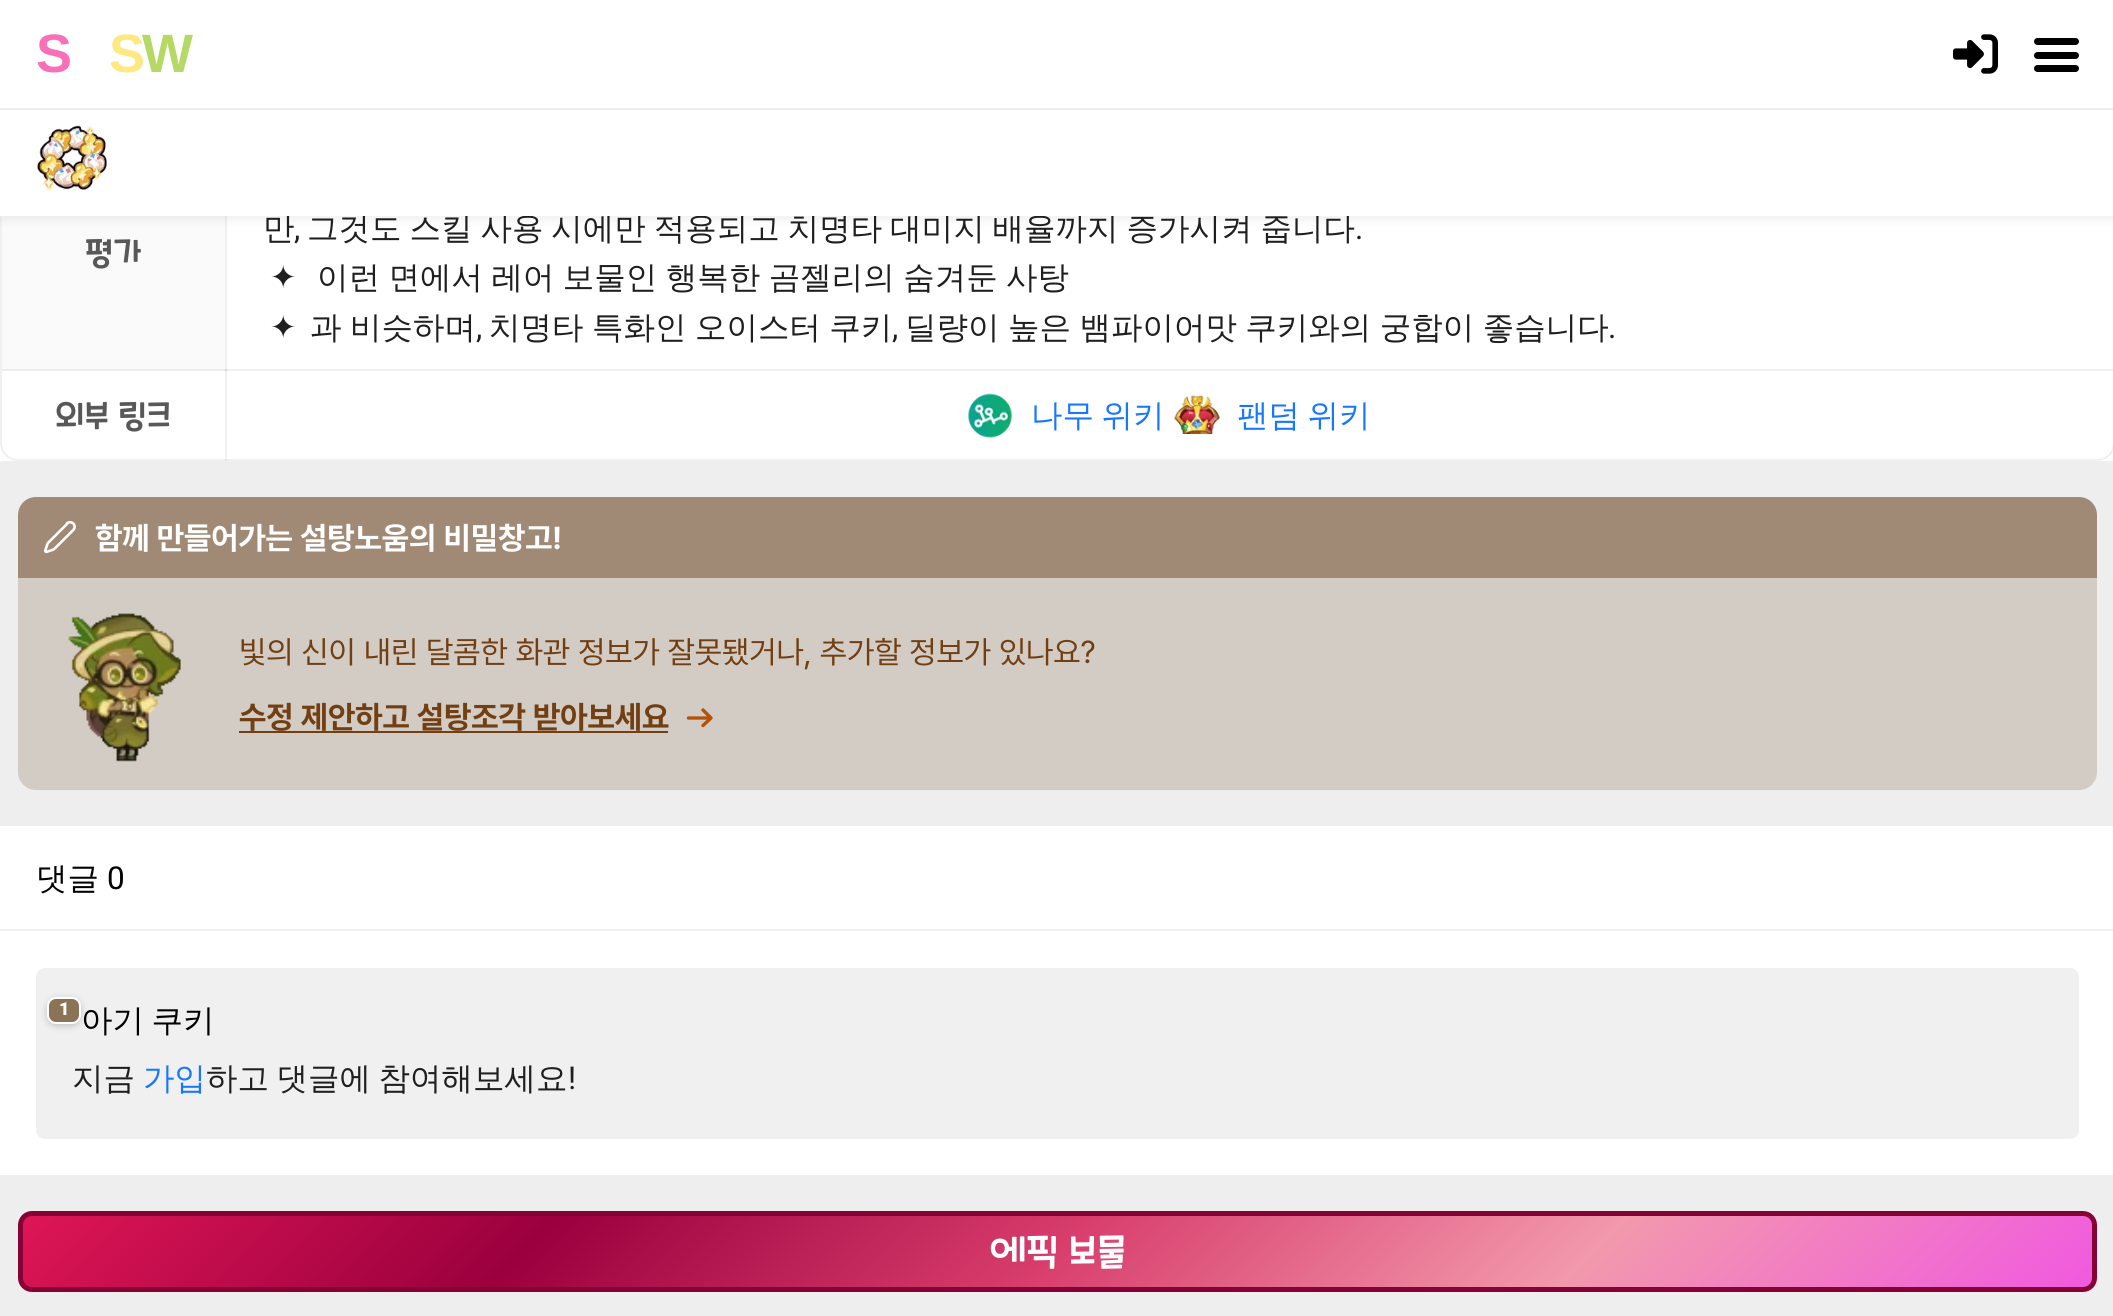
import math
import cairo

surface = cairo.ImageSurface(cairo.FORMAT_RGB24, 2113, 1316)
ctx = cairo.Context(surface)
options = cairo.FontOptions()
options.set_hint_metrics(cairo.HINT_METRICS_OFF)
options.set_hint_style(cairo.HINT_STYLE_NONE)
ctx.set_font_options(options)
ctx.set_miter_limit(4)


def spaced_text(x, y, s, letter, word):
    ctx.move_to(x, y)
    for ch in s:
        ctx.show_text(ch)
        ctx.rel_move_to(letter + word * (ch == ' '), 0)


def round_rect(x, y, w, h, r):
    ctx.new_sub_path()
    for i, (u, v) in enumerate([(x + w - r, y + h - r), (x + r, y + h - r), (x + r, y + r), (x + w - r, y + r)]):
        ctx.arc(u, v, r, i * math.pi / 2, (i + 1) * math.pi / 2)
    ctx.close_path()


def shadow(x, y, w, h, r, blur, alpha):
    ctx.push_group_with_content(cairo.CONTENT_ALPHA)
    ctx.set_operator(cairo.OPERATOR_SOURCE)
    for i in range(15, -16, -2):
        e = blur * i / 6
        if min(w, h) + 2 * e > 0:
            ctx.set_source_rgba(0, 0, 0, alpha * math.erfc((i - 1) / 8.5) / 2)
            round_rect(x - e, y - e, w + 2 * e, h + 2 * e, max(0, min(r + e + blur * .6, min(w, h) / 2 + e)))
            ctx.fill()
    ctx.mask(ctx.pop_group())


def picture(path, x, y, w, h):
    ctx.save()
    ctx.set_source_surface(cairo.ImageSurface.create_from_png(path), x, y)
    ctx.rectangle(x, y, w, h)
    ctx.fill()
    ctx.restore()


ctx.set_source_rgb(0.933, 0.933, 0.933)
ctx.paint()
ctx.set_source_rgb(1, 1, 1)
ctx.rectangle(0, 216, 2113, 245)
ctx.fill()
ctx.set_source_rgb(0.941, 0.941, 0.941)
ctx.rectangle(225, 369, 1888, 2)
ctx.fill()
round_rect(1, -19, 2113, 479, 17)
ctx.stroke()
ctx.set_source_rgb(0.98, 0.98, 0.98)
ctx.rectangle(2, 216, 223, 153)
ctx.fill()
ctx.set_source_rgba(0.02, 0.02, 0.02, 0.06)
ctx.rectangle(225, 369, 2, 92)
ctx.fill()
ctx.rectangle(225, 216, 2, 155)
ctx.fill()
ctx.set_source_rgb(0, 0, 0)
shadow(0, 113, 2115, 108, 0, 4.5, 0.06)
ctx.set_source_rgb(0.933, 0.933, 0.933)
ctx.rectangle(0, 109, 2113, 1)
ctx.fill()
ctx.set_source_rgb(1, 1, 1)
ctx.rectangle(0, 0, 2113, 108)
ctx.fill()
ctx.select_font_face("Liberation Sans", cairo.FONT_SLANT_NORMAL, cairo.FONT_WEIGHT_BOLD)
ctx.set_font_size(54)
ctx.set_source_rgb(0.973, 0.435, 0.722)
spaced_text(36, 72, "S", -3, 0)
ctx.set_source_rgb(0.992, 0.91, 0.51)
spaced_text(109, 72, "S", -3, 0)
ctx.set_source_rgb(0.714, 0.847, 0.396)
spaced_text(142, 72, "W", -3, 0)
picture("img1.png", 1953, 34, 45, 40)
ctx.set_source_rgb(0, 0, 0)
round_rect(2034, 38, 45, 7, 3.5)
ctx.fill()
round_rect(2034, 52, 45, 7, 3.5)
ctx.fill()
round_rect(2034, 65, 45, 7, 3.5)
ctx.fill()
ctx.select_font_face("WenQuanYi Zen Hei Medium")
ctx.set_font_size(31.5)
ctx.set_source_rgb(0.122, 0.122, 0.122)
ctx.move_to(263, 239)
ctx.show_text("만")
spaced_text(307, 239, "그것도 스킬 사용 시에만 적용되고 치명타 대미지 배율까지 증가시켜 줍니다", 0, -1.5)
ctx.set_source_rgb(1, 1, 1)
ctx.rectangle(0, 110, 2113, 106)
ctx.fill()
picture("img2.png", 37, 125, 70, 66)
ctx.set_source_rgb(0.922, 0.922, 0.922)
ctx.rectangle(2, 369, 223, 2)
ctx.fill()
ctx.select_font_face("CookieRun")
ctx.set_source_rgb(0.345, 0.345, 0.345)
ctx.move_to(85, 262)
ctx.show_text("평가")
ctx.select_font_face("Roboto")
ctx.set_source_rgb(0.122, 0.122, 0.122)
ctx.move_to(294, 239)
ctx.show_text(",")
ctx.move_to(1355, 239)
ctx.show_text(".")
ctx.select_font_face("DejaVu Sans")
ctx.move_to(270, 288)
ctx.show_text("✦")
ctx.select_font_face("WenQuanYi Zen Hei Medium")
spaced_text(317, 288, "이런 면에서 레어 보물인 행복한 곰젤리의 숨겨둔 사탕", 0, -1)
ctx.select_font_face("DejaVu Sans")
ctx.move_to(270, 338)
ctx.show_text("✦")
ctx.select_font_face("WenQuanYi Zen Hei Medium")
spaced_text(310, 338, "과 비슷하며", 0, -1)
ctx.select_font_face("Roboto")
ctx.move_to(476, 338)
ctx.show_text(",")
ctx.select_font_face("WenQuanYi Zen Hei Medium")
spaced_text(489, 338, "치명타 특화인 오이스터 쿠키", 0, -1)
ctx.select_font_face("Roboto")
ctx.move_to(892, 338)
ctx.show_text(",")
ctx.select_font_face("WenQuanYi Zen Hei Medium")
spaced_text(905, 338, "딜량이 높은 뱀파이어맛 쿠키와의 궁합이 좋습니다", 0, -1)
ctx.select_font_face("Roboto")
ctx.move_to(1608, 338)
ctx.show_text(".")
ctx.select_font_face("CookieRun")
ctx.set_source_rgb(0.345, 0.345, 0.345)
ctx.move_to(55, 425)
ctx.show_text("외부 링크")
picture("img3.png", 968, 393, 45, 45)
ctx.select_font_face("WenQuanYi Zen Hei Medium")
ctx.set_source_rgb(0.086, 0.467, 1)
spaced_text(1031, 426, "나무 위키", 0, -2)
picture("img4.png", 1174, 395, 46, 39)
spaced_text(1237, 426, "팬덤 위키", 0, -2)
ctx.set_source_rgb(0.631, 0.541, 0.459)
ctx.new_path()
ctx.move_to(36, 497)
ctx.line_to(2079, 497)
ctx.curve_to(2089, 497, 2097, 505, 2097, 515)
ctx.line_to(2097, 578)
ctx.line_to(18, 578)
ctx.line_to(18, 515)
ctx.curve_to(18, 505, 26, 497, 36, 497)
ctx.close_path()
ctx.fill()
picture("img5.png", 44, 520, 32, 34)
ctx.select_font_face("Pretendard", cairo.FONT_SLANT_NORMAL, cairo.FONT_WEIGHT_BOLD)
ctx.set_source_rgb(1, 1, 1)
ctx.move_to(95, 549)
ctx.show_text("함께 만들어가는 설탕노움의 비밀창고!")
ctx.set_source_rgb(0.827, 0.8, 0.773)
ctx.new_path()
ctx.move_to(18, 578)
ctx.line_to(2097, 578)
ctx.line_to(2097, 772)
ctx.curve_to(2097, 782, 2089, 790, 2079, 790)
ctx.line_to(36, 790)
ctx.curve_to(26, 790, 18, 782, 18, 772)
ctx.close_path()
ctx.fill()
picture("img6.png", 68, 613, 113, 149)
ctx.select_font_face("Pretendard")
ctx.set_source_rgb(0.443, 0.247, 0.071)
ctx.move_to(239, 663)
ctx.show_text("빛의 신이 내린 달콤한 화관 정보가 잘못됐거나, 추가할 정보가 있나요?")
ctx.select_font_face("Pretendard", cairo.FONT_SLANT_NORMAL, cairo.FONT_WEIGHT_BOLD)
ctx.move_to(239, 728)
ctx.show_text("수정 제안하고 설탕조각 받아보세요")
ctx.rectangle(239, 731, 429, 2)
ctx.fill()
ctx.new_path()
ctx.move_to(688.5, 718)
ctx.line_to(711, 718)
ctx.move_to(711, 718)
ctx.line_to(703, 710)
ctx.move_to(711, 718)
ctx.line_to(703, 725.5)
ctx.set_source_rgb(0.706, 0.325, 0.035)
ctx.set_line_width(3.4)
ctx.set_line_cap(cairo.LINE_CAP_ROUND)
ctx.set_line_join(cairo.LINE_JOIN_ROUND)
ctx.stroke()
ctx.set_source_rgb(1, 1, 1)
ctx.rectangle(0, 826, 2113, 349)
ctx.fill()
ctx.set_source_rgb(0.941, 0.941, 0.941)
ctx.rectangle(0, 929, 2113, 2)
ctx.fill()
ctx.select_font_face("WenQuanYi Zen Hei Medium")
ctx.set_source_rgb(0, 0, 0)
ctx.move_to(36, 889)
ctx.show_text("댓글")
ctx.select_font_face("Roboto")
ctx.move_to(107, 889)
ctx.show_text("0")
ctx.set_source_rgb(0.941, 0.941, 0.941)
round_rect(36, 968, 2043, 171, 9)
ctx.fill()
ctx.set_source_rgb(0, 0, 0)
shadow(47, 999, 34, 27, 9, 3.5, 0.2)
ctx.set_source_rgb(0.545, 0.451, 0.333)
round_rect(48, 998, 32, 25, 8)
ctx.fill_preserve()
ctx.set_source_rgb(1, 1, 1)
ctx.set_line_width(2)
ctx.set_line_cap(cairo.LINE_CAP_BUTT)
ctx.set_line_join(cairo.LINE_JOIN_MITER)
ctx.stroke()
ctx.select_font_face("Roboto Black")
ctx.set_font_size(18)
spaced_text(59, 1015, "1", -1, 0)
ctx.select_font_face("WenQuanYi Zen Hei Medium")
ctx.set_font_size(31.5)
ctx.set_source_rgb(0, 0, 0)
spaced_text(81, 1031, "아기 쿠키", 0, -2)
ctx.set_source_rgb(0.122, 0.122, 0.122)
ctx.move_to(72, 1089)
ctx.show_text("지금")
ctx.set_source_rgb(0.086, 0.467, 1)
ctx.move_to(143, 1089)
ctx.show_text("가입")
ctx.set_source_rgb(0.122, 0.122, 0.122)
spaced_text(206, 1089, "하고 댓글에 참여해보세요", 0, -2)
ctx.select_font_face("Roboto")
ctx.move_to(568, 1089)
ctx.show_text("!")
ctx.save()
round_rect(18, 1211, 2079, 81, 14)
ctx.clip()
gradient = cairo.LinearGradient(-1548, 644, -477, 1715)
gradient.add_color_stop_rgba(0, 0.871, 0.086, 0.337, 1)
gradient.add_color_stop_rgba(0.25, 0.608, 0, 0.243, 1)
gradient.add_color_stop_rgba(0.5, 0.847, 0.243, 0.424, 1)
gradient.add_color_stop_rgba(0.75, 0.949, 0.6, 0.675, 1)
gradient.add_color_stop_rgba(1, 0.945, 0.349, 0.878, 1)
ctx.set_source(gradient)
ctx.rectangle(18, 1214, 5, 1)
ctx.fill()
ctx.restore()
gradient = cairo.LinearGradient(522, 716, 1593, 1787)
gradient.add_color_stop_rgba(0, 0.871, 0.086, 0.337, 1)
gradient.add_color_stop_rgba(0.25, 0.608, 0, 0.243, 1)
gradient.add_color_stop_rgba(0.5, 0.847, 0.243, 0.424, 1)
gradient.add_color_stop_rgba(0.75, 0.949, 0.6, 0.675, 1)
gradient.add_color_stop_rgba(1, 0.945, 0.349, 0.878, 1)
ctx.set_source(gradient)
ctx.rectangle(23, 1215, 2070, 72)
ctx.fill()
ctx.save()
round_rect(18, 1211, 2079, 81, 14)
ctx.clip()
gradient = cairo.LinearGradient(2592, 788, 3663, 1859)
gradient.add_color_stop_rgba(0, 0.871, 0.086, 0.337, 1)
gradient.add_color_stop_rgba(0.25, 0.608, 0, 0.243, 1)
gradient.add_color_stop_rgba(0.5, 0.847, 0.243, 0.424, 1)
gradient.add_color_stop_rgba(0.75, 0.949, 0.6, 0.675, 1)
gradient.add_color_stop_rgba(1, 0.945, 0.349, 0.878, 1)
ctx.set_source(gradient)
ctx.rectangle(2093, 1287, 1, 5)
ctx.fill()
ctx.restore()
round_rect(20.5, 1213.5, 2074, 76, 11.5)
ctx.set_source_rgb(0.525, 0.008, 0.204)
ctx.set_line_width(5)
ctx.stroke()
ctx.select_font_face("CookieRun")
ctx.set_font_size(36)
ctx.set_source_rgb(1, 1, 1)
ctx.move_to(989, 1262)
ctx.show_text("에픽 보물")
surface.write_to_png("page.png")
